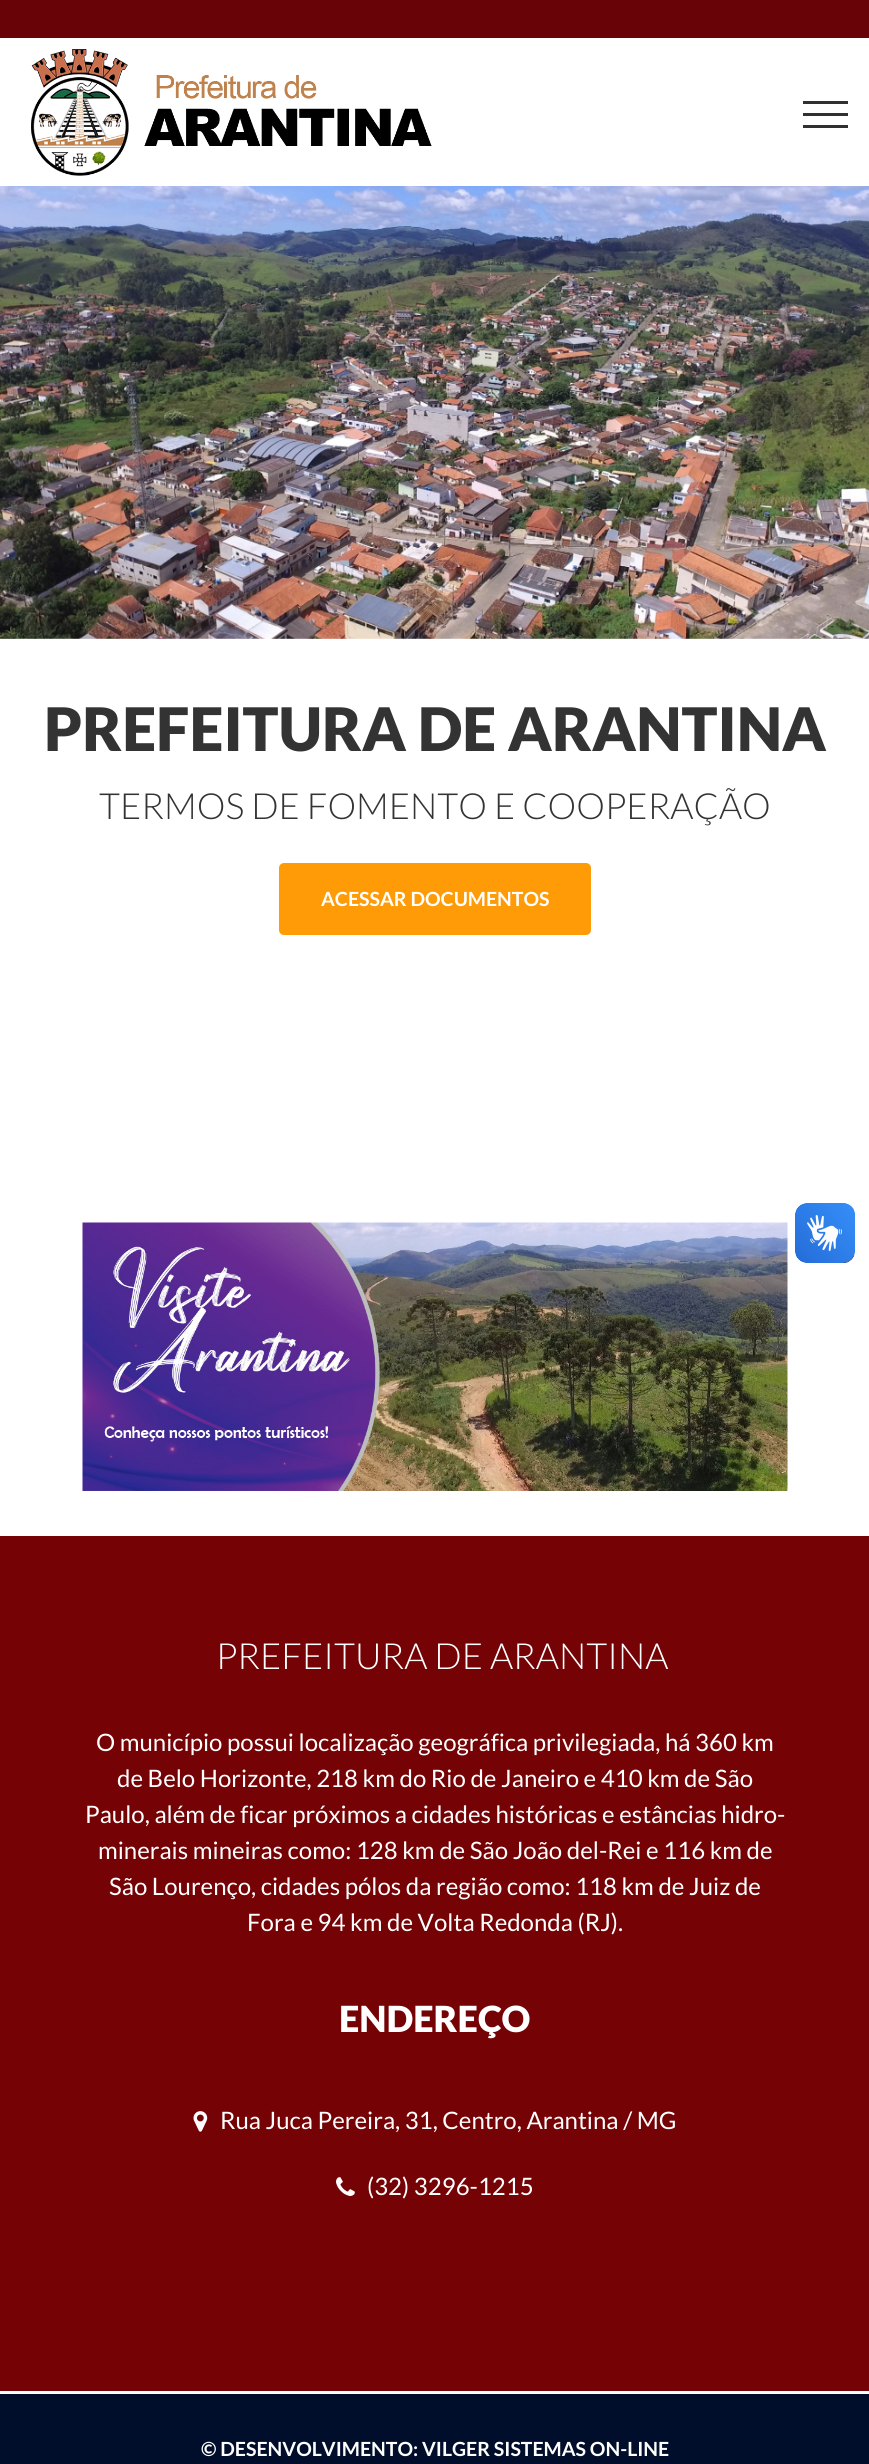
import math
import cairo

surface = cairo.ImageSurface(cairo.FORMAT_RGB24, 869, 2464)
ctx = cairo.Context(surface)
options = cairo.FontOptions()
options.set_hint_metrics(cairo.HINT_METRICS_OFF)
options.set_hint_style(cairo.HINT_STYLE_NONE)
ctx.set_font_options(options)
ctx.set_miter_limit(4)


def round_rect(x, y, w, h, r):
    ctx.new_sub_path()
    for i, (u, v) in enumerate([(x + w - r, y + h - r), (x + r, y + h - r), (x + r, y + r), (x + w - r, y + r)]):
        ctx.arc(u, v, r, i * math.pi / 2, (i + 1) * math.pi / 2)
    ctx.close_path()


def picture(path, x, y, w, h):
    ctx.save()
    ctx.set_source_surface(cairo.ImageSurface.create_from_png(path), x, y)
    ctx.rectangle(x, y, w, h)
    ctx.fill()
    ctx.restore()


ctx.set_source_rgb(1, 1, 1)
ctx.paint()
ctx.set_source_rgb(0.408, 0.016, 0.035)
ctx.rectangle(0, 0, 869, 38)
ctx.fill()
picture("img1.png", 31, 49, 401, 127)
ctx.set_source_rgb(0.188, 0.188, 0.188)
ctx.rectangle(803, 113, 45, 3)
ctx.fill()
ctx.rectangle(803, 101, 45, 3)
ctx.fill()
ctx.rectangle(803, 125, 45, 3)
ctx.fill()
picture("img2.png", 0, 186, 869, 453)
ctx.select_font_face("Lato Black")
ctx.set_font_size(60)
ctx.set_source_rgb(0.2, 0.2, 0.2)
ctx.move_to(44, 751)
ctx.show_text("PREFEITURA DE ARANTINA")
ctx.select_font_face("Lato Light")
ctx.set_font_size(36)
ctx.move_to(99, 819)
ctx.show_text("TERMOS DE FOMENTO E COOPERAÇÃO")
ctx.set_source_rgb(1, 0.608, 0.027)
round_rect(279, 863, 312, 72, 5)
ctx.fill()
ctx.select_font_face("Lato", cairo.FONT_SLANT_NORMAL, cairo.FONT_WEIGHT_BOLD)
ctx.set_font_size(19.5)
ctx.set_source_rgb(1, 1, 1)
ctx.move_to(321, 906)
ctx.show_text("ACESSAR DOCUMENTOS")
picture("img3.png", 82, 1222, 706, 269)
ctx.set_source_rgb(0.459, 0.008, 0.02)
ctx.rectangle(0, 1536, 869, 855)
ctx.fill()
ctx.select_font_face("Lato Light")
ctx.set_font_size(36)
ctx.set_source_rgb(1, 1, 1)
ctx.move_to(216, 1669)
ctx.show_text("PREFEITURA DE ARANTINA")
ctx.select_font_face("Lato")
ctx.set_font_size(24)
ctx.move_to(96, 1751)
ctx.show_text("O município possui localização geográfica privilegiada, há 360 km")
ctx.move_to(117, 1787)
ctx.show_text("de Belo Horizonte, 218 km do Rio de Janeiro e 410 km de São")
ctx.move_to(85, 1823)
ctx.show_text("Paulo, além de ficar próximos a cidades históricas e estâncias hidro-")
ctx.move_to(98, 1859)
ctx.show_text("minerais mineiras como: 128 km de São João del-Rei e 116 km de")
ctx.move_to(109, 1895)
ctx.show_text("São Lourenço, cidades pólos da região como: 118 km de Juiz de")
ctx.move_to(247, 1931)
ctx.show_text("Fora e 94 km de Volta Redonda (RJ).")
ctx.select_font_face("Lato Black")
ctx.set_font_size(36)
ctx.move_to(339, 2032)
ctx.show_text("ENDEREÇO")
picture("img4.png", 193, 2111, 15, 21)
ctx.select_font_face("Lato")
ctx.set_font_size(24)
ctx.move_to(220, 2129)
ctx.show_text("Rua Juca Pereira, 31, Centro, Arantina / MG")
picture("img5.png", 336, 2177, 19, 19)
ctx.move_to(367, 2195)
ctx.show_text("(32) 3296-1215")
ctx.set_source_rgb(0, 0.055, 0.169)
ctx.rectangle(0, 2394, 869, 70)
ctx.fill()
ctx.select_font_face("Lato", cairo.FONT_SLANT_NORMAL, cairo.FONT_WEIGHT_BOLD)
ctx.set_font_size(19.5)
ctx.set_source_rgb(1, 1, 1)
ctx.move_to(201, 2456)
ctx.show_text("© DESENVOLVIMENTO: VILGER SISTEMAS ON-LINE")
picture("img6.png", 795, 1203, 60, 60)
picture("img7.png", 795, 1203, 60, 60)
surface.write_to_png("page.png")
